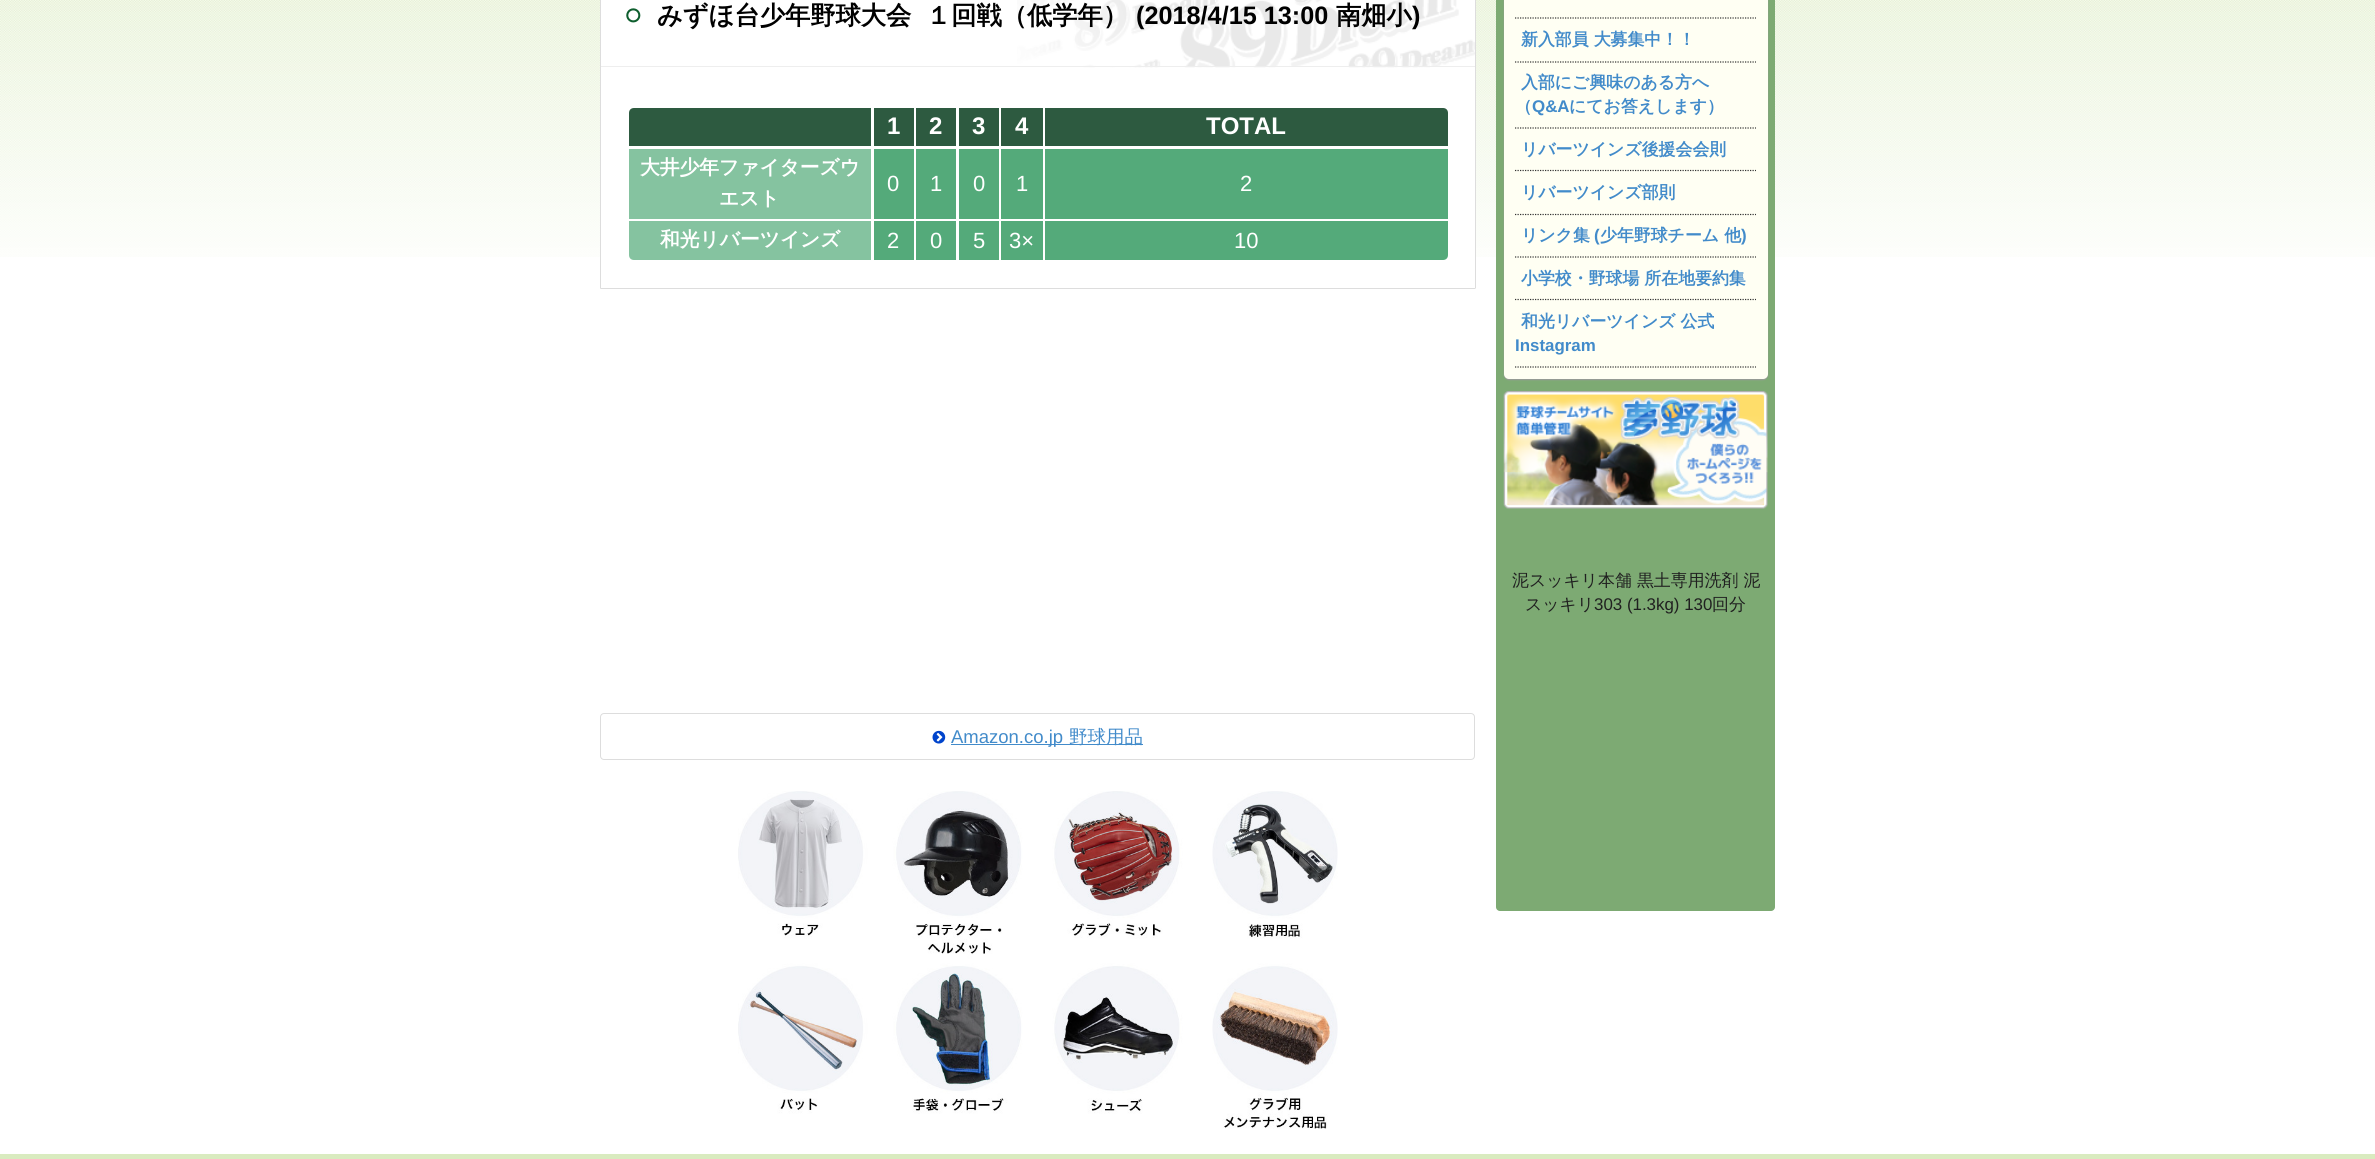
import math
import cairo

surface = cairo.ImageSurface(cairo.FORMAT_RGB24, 2375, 1159)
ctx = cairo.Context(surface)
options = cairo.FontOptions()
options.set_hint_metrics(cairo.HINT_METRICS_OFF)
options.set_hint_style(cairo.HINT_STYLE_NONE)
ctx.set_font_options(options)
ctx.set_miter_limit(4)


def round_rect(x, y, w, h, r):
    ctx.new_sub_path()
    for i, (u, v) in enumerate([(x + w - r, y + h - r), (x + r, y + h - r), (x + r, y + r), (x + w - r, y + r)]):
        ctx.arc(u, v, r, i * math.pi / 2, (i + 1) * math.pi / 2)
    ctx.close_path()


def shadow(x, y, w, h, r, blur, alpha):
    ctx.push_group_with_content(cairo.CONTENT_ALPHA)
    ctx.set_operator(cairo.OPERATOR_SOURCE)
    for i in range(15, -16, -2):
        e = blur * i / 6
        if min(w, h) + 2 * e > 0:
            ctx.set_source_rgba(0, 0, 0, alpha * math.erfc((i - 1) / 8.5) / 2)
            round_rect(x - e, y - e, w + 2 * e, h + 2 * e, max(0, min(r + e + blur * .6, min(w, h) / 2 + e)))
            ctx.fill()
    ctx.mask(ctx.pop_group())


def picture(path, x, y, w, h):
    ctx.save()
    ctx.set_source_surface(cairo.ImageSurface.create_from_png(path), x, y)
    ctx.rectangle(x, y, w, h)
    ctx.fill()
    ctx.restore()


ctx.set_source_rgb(1, 1, 1)
ctx.paint()
picture("img1.png", 0, 0, 2375, 257)
ctx.set_source_rgb(1, 1, 1)
ctx.new_path()
ctx.move_to(606, -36)
ctx.line_to(1470, -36)
ctx.curve_to(1473, -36, 1475, -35, 1475, -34)
ctx.line_to(1475, 288)
ctx.line_to(601, 288)
ctx.line_to(601, -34)
ctx.curve_to(601, -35, 603, -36, 606, -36)
ctx.close_path()
ctx.fill()
ctx.set_source_rgb(0.867, 0.867, 0.867)
ctx.new_path()
ctx.move_to(1475, -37)
ctx.line_to(1476, -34)
ctx.line_to(1476, 288)
ctx.line_to(1475, 288)
ctx.line_to(1475, -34)
ctx.line_to(1475, -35)
ctx.close_path()
ctx.fill()
ctx.new_path()
ctx.move_to(1476, 289)
ctx.line_to(600, 289)
ctx.line_to(601, 288)
ctx.line_to(1475, 288)
ctx.close_path()
ctx.fill()
ctx.new_path()
ctx.move_to(600, 289)
ctx.line_to(601, 288)
ctx.line_to(601, -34)
ctx.line_to(602, -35)
ctx.line_to(601, -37)
ctx.line_to(600, -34)
ctx.close_path()
ctx.fill()
picture("img2.png", 1017, 0, 458, 68)
ctx.set_source_rgb(0.933, 0.933, 0.933)
ctx.rectangle(601, 66, 874, 1)
ctx.fill()
picture("img3.png", 626, 8, 15, 15)
ctx.select_font_face("WenQuanYi Zen Hei", cairo.FONT_SLANT_NORMAL, cairo.FONT_WEIGHT_BOLD)
ctx.set_font_size(25.25)
ctx.set_source_rgb(0, 0, 0)
ctx.move_to(657, 24)
ctx.show_text("みずほ台少年野球大会")
ctx.move_to(926, 24)
ctx.show_text("１回戦（低学年）")
ctx.select_font_face("Liberation Sans", cairo.FONT_SLANT_NORMAL, cairo.FONT_WEIGHT_BOLD)
ctx.move_to(1136, 24)
ctx.show_text("(2018/4/15 13:00")
ctx.select_font_face("WenQuanYi Zen Hei", cairo.FONT_SLANT_NORMAL, cairo.FONT_WEIGHT_BOLD)
ctx.move_to(1336, 24)
ctx.show_text("南畑小")
ctx.select_font_face("Liberation Sans", cairo.FONT_SLANT_NORMAL, cairo.FONT_WEIGHT_BOLD)
ctx.move_to(1412, 24)
ctx.show_text(")")
ctx.set_source_rgb(0.176, 0.353, 0.251)
ctx.new_path()
ctx.move_to(634, 108)
ctx.line_to(871, 108)
ctx.line_to(871, 146)
ctx.line_to(629, 146)
ctx.line_to(629, 113)
ctx.curve_to(629, 110, 631, 108, 634, 108)
ctx.close_path()
ctx.fill()
ctx.rectangle(874, 108, 40, 38)
ctx.fill()
ctx.set_font_size(24)
ctx.set_source_rgb(1, 1, 1)
ctx.move_to(887, 134)
ctx.show_text("1")
ctx.set_source_rgb(0.176, 0.353, 0.251)
ctx.rectangle(916, 108, 40, 38)
ctx.fill()
ctx.set_source_rgb(1, 1, 1)
ctx.move_to(929, 134)
ctx.show_text("2")
ctx.set_source_rgb(0.176, 0.353, 0.251)
ctx.rectangle(959, 108, 40, 38)
ctx.fill()
ctx.set_source_rgb(1, 1, 1)
ctx.move_to(972, 134)
ctx.show_text("3")
ctx.set_source_rgb(0.176, 0.353, 0.251)
ctx.rectangle(1001, 108, 42, 38)
ctx.fill()
ctx.set_source_rgb(1, 1, 1)
ctx.move_to(1015, 134)
ctx.show_text("4")
ctx.set_source_rgb(0.176, 0.353, 0.251)
ctx.new_path()
ctx.move_to(1045, 108)
ctx.line_to(1443, 108)
ctx.curve_to(1446, 108, 1448, 110, 1448, 113)
ctx.line_to(1448, 146)
ctx.line_to(1045, 146)
ctx.close_path()
ctx.fill()
ctx.set_source_rgb(1, 1, 1)
ctx.move_to(1206, 134)
ctx.show_text("TOTAL")
ctx.set_source_rgb(0.522, 0.765, 0.627)
ctx.rectangle(629, 149, 242, 70)
ctx.fill()
ctx.select_font_face("WenQuanYi Zen Hei", cairo.FONT_SLANT_NORMAL, cairo.FONT_WEIGHT_BOLD)
ctx.set_font_size(19.75)
ctx.set_source_rgb(1, 1, 1)
ctx.move_to(640, 174)
ctx.show_text("大井少年ファイターズウ")
ctx.move_to(719, 205)
ctx.show_text("エスト")
ctx.set_source_rgb(0.329, 0.667, 0.478)
ctx.rectangle(874, 149, 40, 70)
ctx.fill()
ctx.select_font_face("Liberation Sans")
ctx.set_font_size(22)
ctx.set_source_rgb(1, 1, 1)
ctx.move_to(887, 191)
ctx.show_text("0")
ctx.set_source_rgb(0.329, 0.667, 0.478)
ctx.rectangle(916, 149, 40, 70)
ctx.fill()
ctx.set_source_rgb(1, 1, 1)
ctx.move_to(930, 191)
ctx.show_text("1")
ctx.set_source_rgb(0.329, 0.667, 0.478)
ctx.rectangle(959, 149, 40, 70)
ctx.fill()
ctx.set_source_rgb(1, 1, 1)
ctx.move_to(973, 191)
ctx.show_text("0")
ctx.set_source_rgb(0.329, 0.667, 0.478)
ctx.rectangle(1001, 149, 42, 70)
ctx.fill()
ctx.set_source_rgb(1, 1, 1)
ctx.move_to(1016, 191)
ctx.show_text("1")
ctx.set_source_rgb(0.329, 0.667, 0.478)
ctx.rectangle(1045, 149, 403, 70)
ctx.fill()
ctx.set_source_rgb(1, 1, 1)
ctx.move_to(1240, 191)
ctx.show_text("2")
ctx.set_source_rgb(0.522, 0.765, 0.627)
ctx.new_path()
ctx.move_to(629, 221)
ctx.line_to(871, 221)
ctx.line_to(871, 260)
ctx.line_to(634, 260)
ctx.curve_to(631, 260, 629, 258, 629, 255)
ctx.close_path()
ctx.fill()
ctx.select_font_face("WenQuanYi Zen Hei", cairo.FONT_SLANT_NORMAL, cairo.FONT_WEIGHT_BOLD)
ctx.set_font_size(19.75)
ctx.set_source_rgb(1, 1, 1)
ctx.move_to(660, 246)
ctx.show_text("和光リバーツインズ")
ctx.set_source_rgb(0.329, 0.667, 0.478)
ctx.rectangle(874, 221, 40, 39)
ctx.fill()
ctx.select_font_face("Liberation Sans")
ctx.set_font_size(22)
ctx.set_source_rgb(1, 1, 1)
ctx.move_to(887, 248)
ctx.show_text("2")
ctx.set_source_rgb(0.329, 0.667, 0.478)
ctx.rectangle(916, 221, 40, 39)
ctx.fill()
ctx.set_source_rgb(1, 1, 1)
ctx.move_to(930, 248)
ctx.show_text("0")
ctx.set_source_rgb(0.329, 0.667, 0.478)
ctx.rectangle(959, 221, 40, 39)
ctx.fill()
ctx.set_source_rgb(1, 1, 1)
ctx.move_to(973, 248)
ctx.show_text("5")
ctx.set_source_rgb(0.329, 0.667, 0.478)
ctx.rectangle(1001, 221, 42, 39)
ctx.fill()
ctx.set_source_rgb(1, 1, 1)
ctx.move_to(1009, 248)
ctx.show_text("3×")
ctx.set_source_rgb(0.329, 0.667, 0.478)
ctx.new_path()
ctx.move_to(1045, 221)
ctx.line_to(1448, 221)
ctx.line_to(1448, 255)
ctx.curve_to(1448, 258, 1446, 260, 1443, 260)
ctx.line_to(1045, 260)
ctx.close_path()
ctx.fill()
ctx.set_source_rgb(1, 1, 1)
ctx.move_to(1234, 248)
ctx.show_text("10")
round_rect(600.5, 713.5, 874, 46, 3.5)
ctx.set_source_rgb(0.867, 0.867, 0.867)
ctx.set_line_width(1)
ctx.stroke()
picture("img4.png", 932, 730, 14, 14)
ctx.set_source_rgb(0.259, 0.545, 0.792)
ctx.rectangle(951, 744, 192, 1)
ctx.fill()
ctx.set_font_size(18.5)
ctx.move_to(951, 743)
ctx.show_text("Amazon.co.jp")
ctx.select_font_face("WenQuanYi Zen Hei Medium")
ctx.move_to(1069, 743)
ctx.show_text("野球用品")
picture("img5.png", 738, 791, 600, 338)
ctx.set_source_rgb(0.49, 0.667, 0.451)
round_rect(1496, -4, 279, 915, 4)
ctx.fill()
ctx.set_source_rgb(0.6, 0.6, 0.6)
shadow(1504, -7, 264, 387, 5, 0.5, 1)
ctx.set_source_rgb(1, 1, 0.953)
round_rect(1504, -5, 264, 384, 5)
ctx.fill()
ctx.new_path()
ctx.move_to(1515, 18)
ctx.line_to(1756, 18)
ctx.set_source_rgb(0.2, 0.2, 0.2)
ctx.set_line_width(1.2)
ctx.set_dash([1.25, 1.25])
ctx.stroke()
ctx.new_path()
ctx.move_to(1515, 62)
ctx.line_to(1756, 62)
ctx.stroke()
ctx.select_font_face("WenQuanYi Zen Hei", cairo.FONT_SLANT_NORMAL, cairo.FONT_WEIGHT_BOLD)
ctx.set_font_size(16.9)
ctx.set_source_rgb(0.259, 0.545, 0.792)
ctx.move_to(1521, 45)
ctx.show_text("新入部員 大募集中！！")
ctx.new_path()
ctx.move_to(1515, 128)
ctx.line_to(1756, 128)
ctx.set_source_rgb(0.2, 0.2, 0.2)
ctx.stroke()
ctx.set_source_rgb(0.259, 0.545, 0.792)
ctx.move_to(1521, 88)
ctx.show_text("入部にご興味のある方へ")
ctx.move_to(1515, 112)
ctx.show_text("（")
ctx.select_font_face("Liberation Sans", cairo.FONT_SLANT_NORMAL, cairo.FONT_WEIGHT_BOLD)
ctx.move_to(1532, 112)
ctx.show_text("Q&A")
ctx.select_font_face("WenQuanYi Zen Hei", cairo.FONT_SLANT_NORMAL, cairo.FONT_WEIGHT_BOLD)
ctx.move_to(1569, 112)
ctx.show_text("にてお答えします）")
ctx.new_path()
ctx.move_to(1515, 170.5)
ctx.line_to(1756, 170.5)
ctx.set_source_rgb(0.2, 0.2, 0.2)
ctx.stroke()
ctx.set_source_rgb(0.259, 0.545, 0.792)
ctx.move_to(1521, 155)
ctx.show_text("リバーツインズ後援会会則")
ctx.new_path()
ctx.move_to(1515, 214.5)
ctx.line_to(1756, 214.5)
ctx.set_source_rgb(0.2, 0.2, 0.2)
ctx.stroke()
ctx.set_source_rgb(0.259, 0.545, 0.792)
ctx.move_to(1521, 198)
ctx.show_text("リバーツインズ部則")
ctx.new_path()
ctx.move_to(1515, 257)
ctx.line_to(1756, 257)
ctx.set_source_rgb(0.2, 0.2, 0.2)
ctx.stroke()
ctx.set_source_rgb(0.259, 0.545, 0.792)
ctx.move_to(1521, 241)
ctx.show_text("リンク集")
ctx.select_font_face("Liberation Sans", cairo.FONT_SLANT_NORMAL, cairo.FONT_WEIGHT_BOLD)
ctx.move_to(1594, 241)
ctx.show_text("(")
ctx.select_font_face("WenQuanYi Zen Hei", cairo.FONT_SLANT_NORMAL, cairo.FONT_WEIGHT_BOLD)
ctx.move_to(1600, 241)
ctx.show_text("少年野球チーム 他")
ctx.select_font_face("Liberation Sans", cairo.FONT_SLANT_NORMAL, cairo.FONT_WEIGHT_BOLD)
ctx.move_to(1741, 241)
ctx.show_text(")")
ctx.new_path()
ctx.move_to(1515, 299.5)
ctx.line_to(1756, 299.5)
ctx.set_source_rgb(0.2, 0.2, 0.2)
ctx.stroke()
ctx.select_font_face("WenQuanYi Zen Hei", cairo.FONT_SLANT_NORMAL, cairo.FONT_WEIGHT_BOLD)
ctx.set_source_rgb(0.259, 0.545, 0.792)
ctx.move_to(1521, 284)
ctx.show_text("小学校・野球場 所在地要約集")
ctx.new_path()
ctx.move_to(1515, 367)
ctx.line_to(1756, 367)
ctx.set_source_rgb(0.2, 0.2, 0.2)
ctx.stroke()
ctx.set_source_rgb(0.259, 0.545, 0.792)
ctx.move_to(1521, 327)
ctx.show_text("和光リバーツインズ 公式")
ctx.select_font_face("Liberation Sans", cairo.FONT_SLANT_NORMAL, cairo.FONT_WEIGHT_BOLD)
ctx.move_to(1515, 351)
ctx.show_text("Instagram")
picture("img6.png", 1503, 391, 265, 118)
ctx.select_font_face("WenQuanYi Zen Hei Medium")
ctx.set_source_rgb(0.125, 0.125, 0.125)
ctx.move_to(1512, 586)
ctx.show_text("泥スッキリ本舗 黒土専用洗剤 泥")
ctx.move_to(1525, 610)
ctx.show_text("スッキリ")
ctx.select_font_face("Liberation Sans")
ctx.move_to(1594, 610)
ctx.show_text("303 (1.3kg) 130")
ctx.select_font_face("WenQuanYi Zen Hei Medium")
ctx.move_to(1712, 610)
ctx.show_text("回分")
ctx.set_source_rgb(0.851, 0.918, 0.749)
ctx.rectangle(0, 1154, 2375, 5)
ctx.fill()
surface.write_to_png("page.png")
